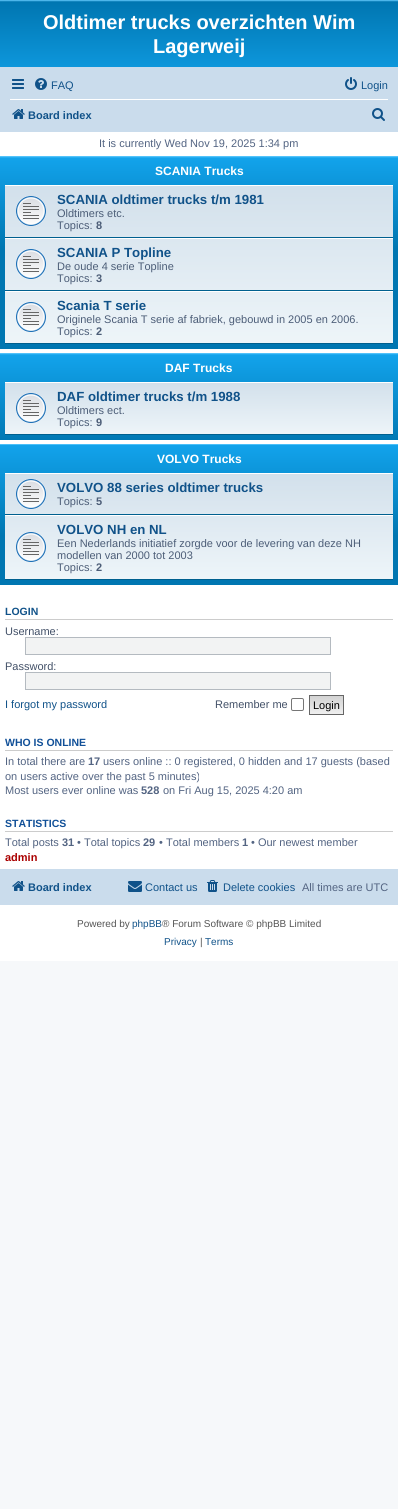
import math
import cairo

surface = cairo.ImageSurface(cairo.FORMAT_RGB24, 398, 1509)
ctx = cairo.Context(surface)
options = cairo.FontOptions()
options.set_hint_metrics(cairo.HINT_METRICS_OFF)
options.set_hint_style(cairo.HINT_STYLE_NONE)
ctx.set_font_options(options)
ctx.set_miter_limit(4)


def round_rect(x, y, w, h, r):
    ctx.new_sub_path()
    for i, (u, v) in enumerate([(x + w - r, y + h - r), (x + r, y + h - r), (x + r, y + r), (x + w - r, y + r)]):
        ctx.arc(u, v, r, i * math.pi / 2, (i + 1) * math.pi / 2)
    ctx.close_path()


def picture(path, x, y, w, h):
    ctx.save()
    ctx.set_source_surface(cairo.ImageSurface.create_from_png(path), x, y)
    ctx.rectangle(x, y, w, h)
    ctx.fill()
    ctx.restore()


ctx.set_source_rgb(0.961, 0.969, 0.98)
ctx.paint()
ctx.set_source_rgb(1, 1, 1)
ctx.rectangle(0, 132, 398, 829)
ctx.fill()
gradient = cairo.LinearGradient(199, 0, 199, 92)
gradient.add_color_stop_rgba(0, 0.416, 0.808, 1, 1)
gradient.add_color_stop_rgba(0.02, 0, 0.463, 0.694, 1)
gradient.add_color_stop_rgba(1, 0.071, 0.639, 0.922, 1)
ctx.set_source(gradient)
ctx.rectangle(0, 0, 398, 67)
ctx.fill()
ctx.select_font_face("Liberation Sans", cairo.FONT_SLANT_NORMAL, cairo.FONT_WEIGHT_BOLD)
ctx.set_font_size(20)
ctx.set_source_rgb(1, 1, 1)
ctx.move_to(43, 29)
ctx.show_text("Oldtimer trucks overzichten Wim")
ctx.move_to(153, 53)
ctx.show_text("Lagerweij")
ctx.set_source_rgb(0.792, 0.863, 0.922)
ctx.rectangle(0, 67, 398, 65)
ctx.fill()
picture("img1.png", 12, 79, 12, 10)
picture("img2.png", 35, 78, 12, 12)
ctx.select_font_face("Liberation Sans")
ctx.set_font_size(11)
ctx.set_source_rgb(0.063, 0.322, 0.537)
ctx.move_to(51, 89)
ctx.show_text("FAQ")
picture("img3.png", 345, 77, 12, 13)
ctx.move_to(361, 89)
ctx.show_text("Login")
ctx.set_source_rgb(1, 1, 1)
ctx.rectangle(10, 99, 378, 1)
ctx.fill()
picture("img4.png", 12, 109, 13, 10)
ctx.select_font_face("Liberation Sans", cairo.FONT_SLANT_NORMAL, cairo.FONT_WEIGHT_BOLD)
ctx.set_source_rgb(0.063, 0.322, 0.537)
ctx.move_to(28, 119)
ctx.show_text("Board index")
picture("img5.png", 372, 108, 13, 13)
ctx.select_font_face("Liberation Sans")
ctx.set_source_rgb(0.325, 0.392, 0.51)
ctx.move_to(99, 147)
ctx.show_text("It is currently Wed Nov 19, 2025 1:34 pm")
gradient = cairo.LinearGradient(199, 156, 199, 349)
gradient.add_color_stop_rgba(0, 0.416, 0.808, 1, 1)
gradient.add_color_stop_rgba(0.01, 0.071, 0.639, 0.922, 1)
gradient.add_color_stop_rgba(0.48, 0, 0.463, 0.694, 1)
gradient.add_color_stop_rgba(1, 0, 0.463, 0.694, 1)
ctx.set_source(gradient)
ctx.rectangle(0, 156, 398, 193)
ctx.fill()
ctx.select_font_face("Liberation Sans", cairo.FONT_SLANT_NORMAL, cairo.FONT_WEIGHT_BOLD)
ctx.set_font_size(12)
ctx.set_source_rgb(1, 1, 1)
ctx.move_to(155, 175)
ctx.show_text("SCANIA Trucks")
gradient = cairo.LinearGradient(199, 185, 199, 344)
gradient.add_color_stop_rgba(0, 0.824, 0.878, 0.922, 1)
gradient.add_color_stop_rgba(1, 0.933, 0.961, 0.976, 1)
ctx.set_source(gradient)
ctx.rectangle(5, 186, 388, 157)
ctx.fill()
ctx.set_source_rgb(1, 1, 1)
ctx.rectangle(5, 185, 388, 1)
ctx.fill()
ctx.set_source_rgb(0, 0.376, 0.561)
ctx.rectangle(5, 237, 388, 1)
ctx.fill()
picture("img6.png", 16, 196, 30, 30)
ctx.set_font_size(13.25)
ctx.set_source_rgb(0.063, 0.322, 0.537)
ctx.move_to(57, 204)
ctx.show_text("SCANIA oldtimer trucks t/m 1981")
ctx.select_font_face("Liberation Sans")
ctx.set_font_size(11)
ctx.set_source_rgb(0.298, 0.365, 0.467)
ctx.move_to(57, 217)
ctx.show_text("Oldtimers etc.")
ctx.move_to(57, 229)
ctx.show_text("Topics:")
ctx.select_font_face("Liberation Sans", cairo.FONT_SLANT_NORMAL, cairo.FONT_WEIGHT_BOLD)
ctx.move_to(96, 229)
ctx.show_text("8")
ctx.set_source_rgb(1, 1, 1)
ctx.rectangle(5, 238, 388, 1)
ctx.fill()
ctx.set_source_rgb(0, 0.376, 0.561)
ctx.rectangle(5, 290, 388, 1)
ctx.fill()
picture("img7.png", 16, 249, 30, 30)
ctx.set_font_size(13.25)
ctx.set_source_rgb(0.063, 0.322, 0.537)
ctx.move_to(57, 257)
ctx.show_text("SCANIA P Topline")
ctx.select_font_face("Liberation Sans")
ctx.set_font_size(11)
ctx.set_source_rgb(0.298, 0.365, 0.467)
ctx.move_to(57, 270)
ctx.show_text("De oude 4 serie Topline")
ctx.move_to(57, 282)
ctx.show_text("Topics:")
ctx.select_font_face("Liberation Sans", cairo.FONT_SLANT_NORMAL, cairo.FONT_WEIGHT_BOLD)
ctx.move_to(96, 282)
ctx.show_text("3")
ctx.set_source_rgb(1, 1, 1)
ctx.rectangle(5, 291, 388, 1)
ctx.fill()
ctx.set_source_rgb(0, 0.376, 0.561)
ctx.rectangle(5, 343, 388, 1)
ctx.fill()
picture("img8.png", 16, 302, 30, 30)
ctx.set_font_size(13.25)
ctx.set_source_rgb(0.063, 0.322, 0.537)
ctx.move_to(57, 310)
ctx.show_text("Scania T serie")
ctx.select_font_face("Liberation Sans")
ctx.set_font_size(11)
ctx.set_source_rgb(0.298, 0.365, 0.467)
ctx.move_to(57, 323)
ctx.show_text("Originele Scania T serie af fabriek, gebouwd in 2005 en 2006.")
ctx.move_to(57, 335)
ctx.show_text("Topics:")
ctx.select_font_face("Liberation Sans", cairo.FONT_SLANT_NORMAL, cairo.FONT_WEIGHT_BOLD)
ctx.move_to(96, 335)
ctx.show_text("2")
gradient = cairo.LinearGradient(199, 353, 199, 445)
gradient.add_color_stop_rgba(0, 0.416, 0.808, 1, 1)
gradient.add_color_stop_rgba(0.02, 0.071, 0.639, 0.922, 1)
gradient.add_color_stop_rgba(1, 0, 0.463, 0.694, 1)
ctx.set_source(gradient)
ctx.rectangle(0, 353, 398, 87)
ctx.fill()
ctx.set_font_size(12)
ctx.set_source_rgb(1, 1, 1)
ctx.move_to(165, 372)
ctx.show_text("DAF Trucks")
gradient = cairo.LinearGradient(199, 382, 199, 435)
gradient.add_color_stop_rgba(0, 0.824, 0.878, 0.922, 1)
gradient.add_color_stop_rgba(1, 0.933, 0.961, 0.976, 1)
ctx.set_source(gradient)
ctx.rectangle(5, 383, 388, 51)
ctx.fill()
ctx.set_source_rgb(1, 1, 1)
ctx.rectangle(5, 382, 388, 1)
ctx.fill()
ctx.set_source_rgb(0, 0.376, 0.561)
ctx.rectangle(5, 434, 388, 1)
ctx.fill()
picture("img9.png", 16, 393, 30, 30)
ctx.set_font_size(13.25)
ctx.set_source_rgb(0.063, 0.322, 0.537)
ctx.move_to(57, 401)
ctx.show_text("DAF oldtimer trucks t/m 1988")
ctx.select_font_face("Liberation Sans")
ctx.set_font_size(11)
ctx.set_source_rgb(0.298, 0.365, 0.467)
ctx.move_to(57, 414)
ctx.show_text("Oldtimers ect.")
ctx.move_to(57, 426)
ctx.show_text("Topics:")
ctx.select_font_face("Liberation Sans", cairo.FONT_SLANT_NORMAL, cairo.FONT_WEIGHT_BOLD)
ctx.move_to(96, 426)
ctx.show_text("9")
gradient = cairo.LinearGradient(199, 444, 199, 585)
gradient.add_color_stop_rgba(0, 0.416, 0.808, 1, 1)
gradient.add_color_stop_rgba(0.01, 0.071, 0.639, 0.922, 1)
gradient.add_color_stop_rgba(0.65, 0, 0.463, 0.694, 1)
gradient.add_color_stop_rgba(1, 0, 0.463, 0.694, 1)
ctx.set_source(gradient)
ctx.rectangle(0, 444, 398, 141)
ctx.fill()
ctx.set_font_size(12)
ctx.set_source_rgb(1, 1, 1)
ctx.move_to(157, 463)
ctx.show_text("VOLVO Trucks")
gradient = cairo.LinearGradient(199, 473, 199, 580)
gradient.add_color_stop_rgba(0, 0.824, 0.878, 0.922, 1)
gradient.add_color_stop_rgba(1, 0.933, 0.961, 0.976, 1)
ctx.set_source(gradient)
ctx.rectangle(5, 474, 388, 105)
ctx.fill()
ctx.set_source_rgb(1, 1, 1)
ctx.rectangle(5, 473, 388, 1)
ctx.fill()
ctx.set_source_rgb(0, 0.376, 0.561)
ctx.rectangle(5, 514, 388, 1)
ctx.fill()
picture("img10.png", 16, 479, 30, 30)
ctx.set_font_size(13.25)
ctx.set_source_rgb(0.063, 0.322, 0.537)
ctx.move_to(57, 492)
ctx.show_text("VOLVO 88 series oldtimer trucks")
ctx.select_font_face("Liberation Sans")
ctx.set_font_size(11)
ctx.set_source_rgb(0.298, 0.365, 0.467)
ctx.move_to(57, 505)
ctx.show_text("Topics:")
ctx.select_font_face("Liberation Sans", cairo.FONT_SLANT_NORMAL, cairo.FONT_WEIGHT_BOLD)
ctx.move_to(96, 505)
ctx.show_text("5")
ctx.set_source_rgb(1, 1, 1)
ctx.rectangle(5, 515, 388, 1)
ctx.fill()
ctx.set_source_rgb(0, 0.376, 0.561)
ctx.rectangle(5, 579, 388, 1)
ctx.fill()
picture("img11.png", 16, 532, 30, 30)
ctx.set_font_size(13.25)
ctx.set_source_rgb(0.063, 0.322, 0.537)
ctx.move_to(57, 534)
ctx.show_text("VOLVO NH en NL")
ctx.select_font_face("Liberation Sans")
ctx.set_font_size(11)
ctx.set_source_rgb(0.298, 0.365, 0.467)
ctx.move_to(57, 547)
ctx.show_text("Een Nederlands initiatief zorgde voor de levering van deze NH")
ctx.move_to(57, 559)
ctx.show_text("modellen van 2000 tot 2003")
ctx.move_to(57, 571)
ctx.show_text("Topics:")
ctx.select_font_face("Liberation Sans", cairo.FONT_SLANT_NORMAL, cairo.FONT_WEIGHT_BOLD)
ctx.move_to(96, 571)
ctx.show_text("2")
ctx.set_source_rgb(0.8, 0.8, 0.8)
ctx.rectangle(5, 619, 388, 1)
ctx.fill()
ctx.set_font_size(10.5)
ctx.set_source_rgb(0.063, 0.322, 0.537)
ctx.move_to(5, 615)
ctx.show_text("LOGIN")
ctx.select_font_face("Liberation Sans")
ctx.set_font_size(11)
ctx.set_source_rgb(0.259, 0.314, 0.404)
ctx.move_to(5, 635)
ctx.show_text("Username:")
ctx.set_source_rgb(0.949, 0.953, 0.953)
ctx.rectangle(25.5, 637.5, 305, 17)
ctx.fill_preserve()
ctx.set_source_rgb(0.706, 0.729, 0.753)
ctx.set_line_width(1)
ctx.stroke()
ctx.set_source_rgb(0.259, 0.314, 0.404)
ctx.move_to(5, 670)
ctx.show_text("Password:")
ctx.set_source_rgb(0.949, 0.953, 0.953)
ctx.rectangle(25.5, 672.5, 305, 17)
ctx.fill_preserve()
ctx.set_source_rgb(0.706, 0.729, 0.753)
ctx.stroke()
ctx.set_source_rgb(0.063, 0.322, 0.537)
ctx.move_to(5, 708)
ctx.show_text("I forgot my password")
ctx.set_source_rgb(0.259, 0.314, 0.404)
ctx.move_to(215, 708)
ctx.show_text("Remember me")
round_rect(291.5, 698.5, 12, 12, 1.5)
ctx.set_source_rgb(0.463, 0.463, 0.463)
ctx.stroke()
gradient = cairo.LinearGradient(327, 696, 327, 714)
gradient.add_color_stop_rgba(0, 0.824, 0.824, 0.824, 1)
gradient.add_color_stop_rgba(1, 0.937, 0.937, 0.937, 1)
ctx.set_source(gradient)
ctx.rectangle(310, 696, 33, 18)
ctx.fill()
ctx.rectangle(309.5, 695.5, 34, 19)
ctx.set_source_rgb(0.4, 0.4, 0.4)
ctx.stroke()
ctx.set_source_rgb(0, 0, 0)
ctx.move_to(313, 709)
ctx.show_text("Login")
ctx.set_source_rgb(0.8, 0.8, 0.8)
ctx.rectangle(5, 750, 388, 1)
ctx.fill()
ctx.select_font_face("Liberation Sans", cairo.FONT_SLANT_NORMAL, cairo.FONT_WEIGHT_BOLD)
ctx.set_font_size(10.5)
ctx.set_source_rgb(0.067, 0.314, 0.596)
ctx.move_to(5, 746)
ctx.show_text("WHO IS ONLINE")
ctx.select_font_face("Liberation Sans")
ctx.set_font_size(11)
ctx.set_source_rgb(0.325, 0.392, 0.51)
ctx.move_to(5, 765)
ctx.show_text("In total there are")
ctx.select_font_face("Liberation Sans", cairo.FONT_SLANT_NORMAL, cairo.FONT_WEIGHT_BOLD)
ctx.move_to(88, 765)
ctx.show_text("17")
ctx.select_font_face("Liberation Sans")
ctx.move_to(103, 765)
ctx.show_text("users online :: 0 registered, 0 hidden and 17 guests (based")
ctx.move_to(5, 780)
ctx.show_text("on users active over the past 5 minutes)")
ctx.move_to(5, 794)
ctx.show_text("Most users ever online was")
ctx.select_font_face("Liberation Sans", cairo.FONT_SLANT_NORMAL, cairo.FONT_WEIGHT_BOLD)
ctx.move_to(141, 794)
ctx.show_text("528")
ctx.select_font_face("Liberation Sans")
ctx.move_to(163, 794)
ctx.show_text("on Fri Aug 15, 2025 4:20 am")
ctx.set_source_rgb(0.8, 0.8, 0.8)
ctx.rectangle(5, 831, 388, 1)
ctx.fill()
ctx.select_font_face("Liberation Sans", cairo.FONT_SLANT_NORMAL, cairo.FONT_WEIGHT_BOLD)
ctx.set_font_size(10.5)
ctx.set_source_rgb(0.067, 0.314, 0.596)
ctx.move_to(5, 827)
ctx.show_text("STATISTICS")
ctx.select_font_face("Liberation Sans")
ctx.set_font_size(11)
ctx.set_source_rgb(0.325, 0.392, 0.51)
ctx.move_to(5, 846)
ctx.show_text("Total posts")
ctx.select_font_face("Liberation Sans", cairo.FONT_SLANT_NORMAL, cairo.FONT_WEIGHT_BOLD)
ctx.move_to(62, 846)
ctx.show_text("31")
ctx.select_font_face("Liberation Sans")
ctx.move_to(77, 846)
ctx.show_text("• Total topics")
ctx.select_font_face("Liberation Sans", cairo.FONT_SLANT_NORMAL, cairo.FONT_WEIGHT_BOLD)
ctx.move_to(143, 846)
ctx.show_text("29")
ctx.select_font_face("Liberation Sans")
ctx.move_to(159, 846)
ctx.show_text("• Total members")
ctx.select_font_face("Liberation Sans", cairo.FONT_SLANT_NORMAL, cairo.FONT_WEIGHT_BOLD)
ctx.move_to(242, 846)
ctx.show_text("1")
ctx.select_font_face("Liberation Sans")
ctx.move_to(251, 846)
ctx.show_text("• Our newest member")
ctx.select_font_face("Liberation Sans", cairo.FONT_SLANT_NORMAL, cairo.FONT_WEIGHT_BOLD)
ctx.set_source_rgb(0.667, 0, 0)
ctx.move_to(5, 861)
ctx.show_text("admin")
ctx.set_source_rgb(0.792, 0.863, 0.922)
ctx.rectangle(0, 869, 398, 36)
ctx.fill()
picture("img4.png", 12, 881, 13, 10)
ctx.set_source_rgb(0.063, 0.322, 0.537)
ctx.move_to(28, 891)
ctx.show_text("Board index")
picture("img12.png", 128, 881, 14, 11)
ctx.select_font_face("Liberation Sans")
ctx.move_to(145, 891)
ctx.show_text("Contact us")
picture("img13.png", 207, 880, 11, 12)
ctx.move_to(223, 891)
ctx.show_text("Delete cookies")
ctx.set_source_rgb(0.325, 0.392, 0.51)
ctx.move_to(302, 891)
ctx.show_text("All times are UTC")
ctx.set_font_size(10)
ctx.set_source_rgb(0.333, 0.333, 0.333)
ctx.move_to(77, 927)
ctx.show_text("Powered by")
ctx.set_source_rgb(0.063, 0.322, 0.537)
ctx.move_to(132, 927)
ctx.show_text("phpBB")
ctx.set_source_rgb(0.333, 0.333, 0.333)
ctx.move_to(162, 927)
ctx.show_text("® Forum Software © phpBB Limited")
ctx.set_source_rgb(0.063, 0.322, 0.537)
ctx.move_to(164, 945)
ctx.show_text("Privacy")
ctx.set_source_rgb(0.333, 0.333, 0.333)
ctx.move_to(200, 945)
ctx.show_text("|")
ctx.set_source_rgb(0.063, 0.322, 0.537)
ctx.move_to(205, 945)
ctx.show_text("Terms")
surface.write_to_png("page.png")
